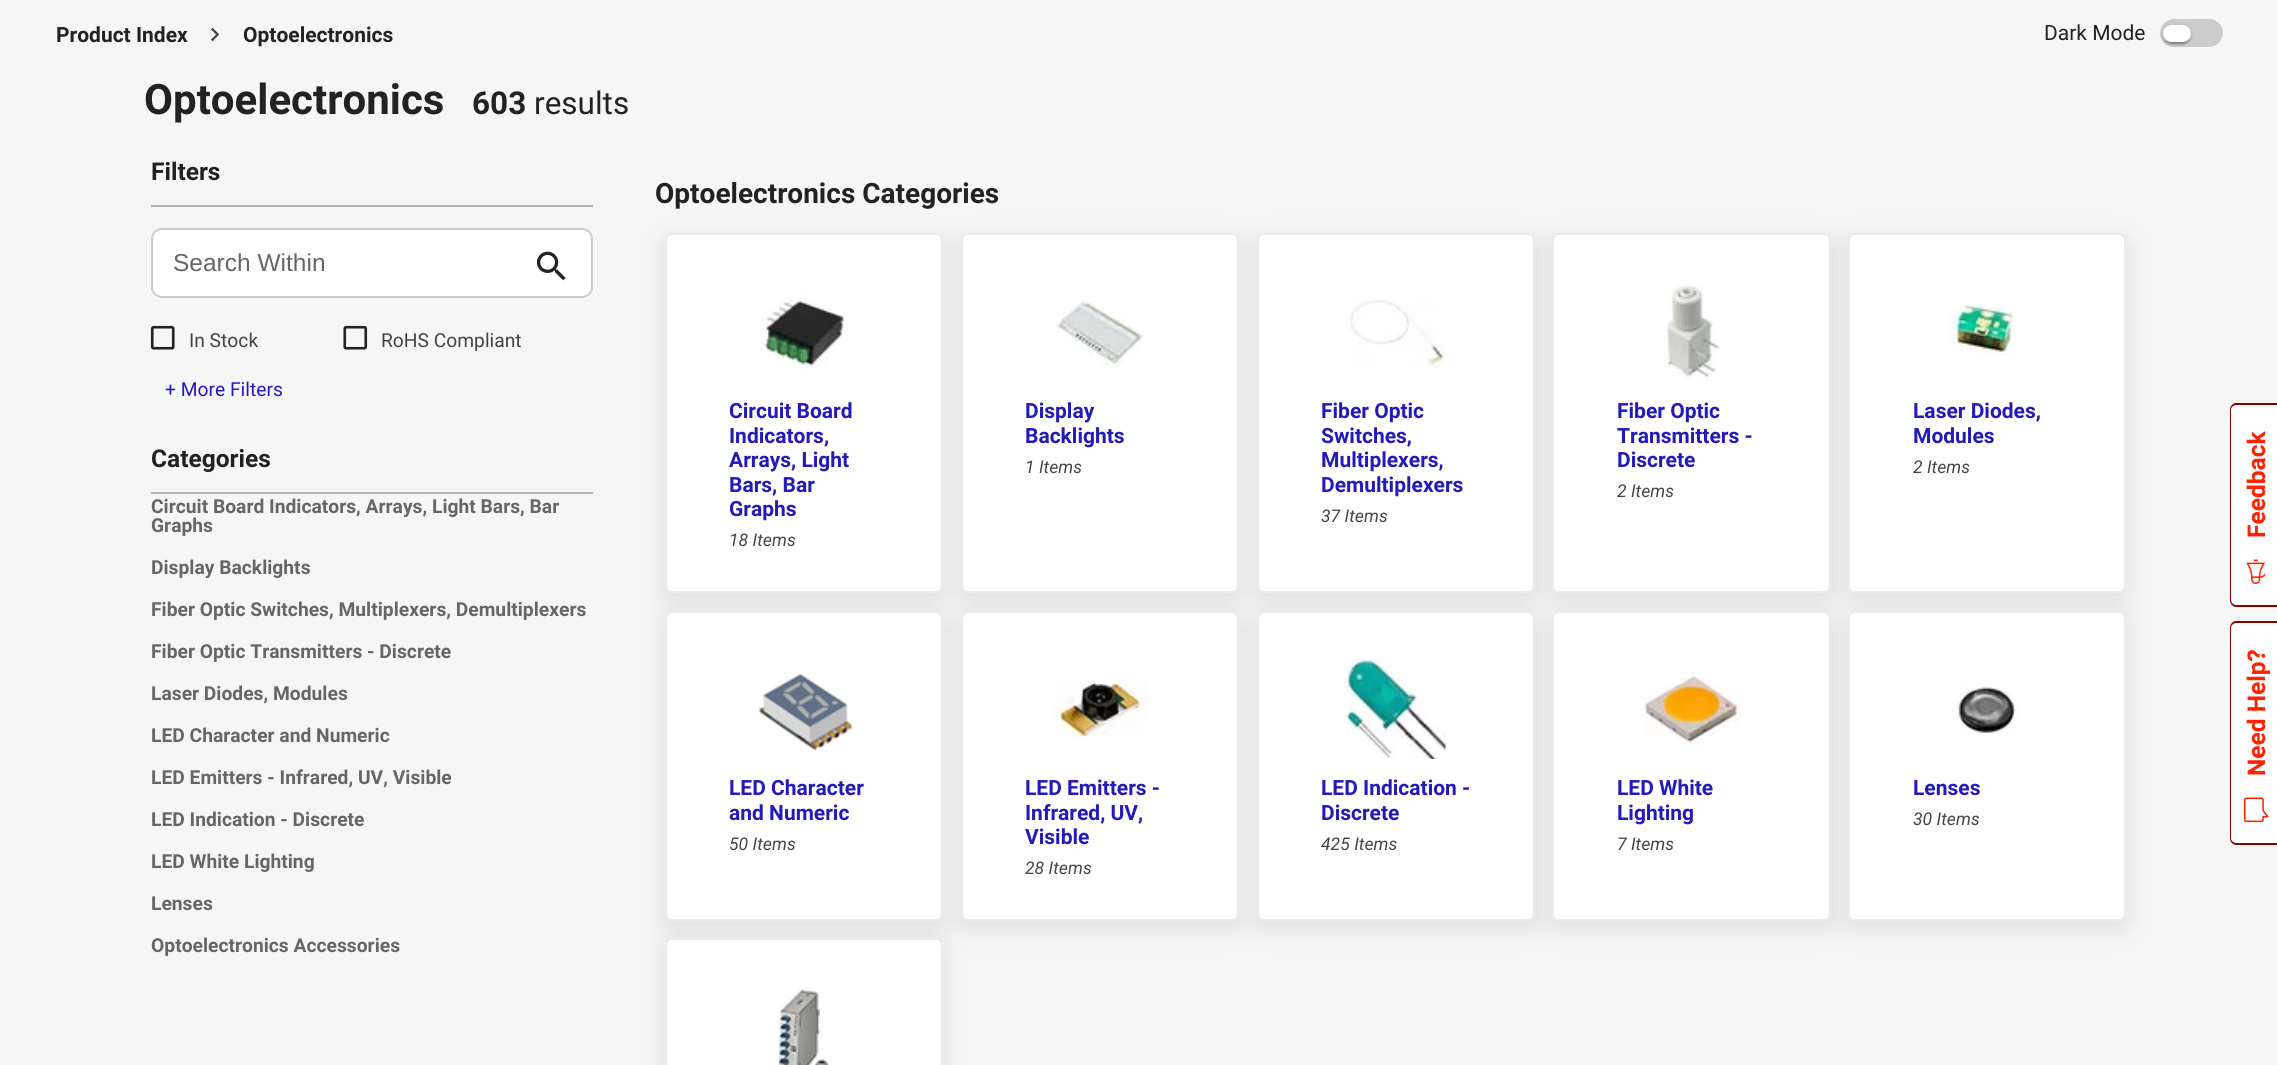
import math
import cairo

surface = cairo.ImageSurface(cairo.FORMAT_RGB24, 2277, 1065)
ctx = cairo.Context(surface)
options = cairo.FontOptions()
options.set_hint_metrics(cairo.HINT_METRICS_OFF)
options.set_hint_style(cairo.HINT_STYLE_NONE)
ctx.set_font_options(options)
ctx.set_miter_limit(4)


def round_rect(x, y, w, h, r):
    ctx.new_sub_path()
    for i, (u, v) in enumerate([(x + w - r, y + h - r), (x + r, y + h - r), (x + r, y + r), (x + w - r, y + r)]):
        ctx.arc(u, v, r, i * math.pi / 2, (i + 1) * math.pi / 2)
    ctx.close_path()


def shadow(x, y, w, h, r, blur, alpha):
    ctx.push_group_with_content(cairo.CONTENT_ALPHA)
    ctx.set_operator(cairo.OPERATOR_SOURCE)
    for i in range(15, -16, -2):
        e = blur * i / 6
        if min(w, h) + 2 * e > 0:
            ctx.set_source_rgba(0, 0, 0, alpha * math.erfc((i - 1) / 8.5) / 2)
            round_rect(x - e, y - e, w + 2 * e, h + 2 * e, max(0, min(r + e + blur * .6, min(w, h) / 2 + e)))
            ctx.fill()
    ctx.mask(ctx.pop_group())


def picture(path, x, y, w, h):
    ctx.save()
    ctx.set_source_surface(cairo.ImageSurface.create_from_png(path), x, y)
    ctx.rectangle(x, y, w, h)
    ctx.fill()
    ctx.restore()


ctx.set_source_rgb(0.961, 0.961, 0.961)
ctx.paint()
ctx.select_font_face("Roboto", cairo.FONT_SLANT_NORMAL, cairo.FONT_WEIGHT_BOLD)
ctx.set_font_size(21)
ctx.set_source_rgb(0.133, 0.133, 0.133)
ctx.move_to(56, 42)
ctx.show_text("Product Index")
picture("img1.png", 211, 27, 9, 15)
ctx.move_to(243, 42)
ctx.show_text("Optoelectronics")
ctx.select_font_face("Roboto")
ctx.move_to(2044, 40)
ctx.show_text("Dark Mode")
ctx.set_source_rgb(0.8, 0.8, 0.8)
round_rect(2160, 19, 63, 28, 14)
ctx.fill()
ctx.set_source_rgb(0, 0, 0)
shadow(2163, 26, 28, 18, 9, 2.5, 0.12)
shadow(2163, 26, 28, 18, 9, 1, 0.14)
shadow(2165, 30, 24, 14, 7, 1, 0.2)
ctx.set_source_rgb(1, 1, 1)
round_rect(2163, 25, 28, 17, 8.5)
ctx.fill()
ctx.select_font_face("Roboto", cairo.FONT_SLANT_NORMAL, cairo.FONT_WEIGHT_BOLD)
ctx.set_font_size(42)
ctx.set_source_rgb(0.133, 0.133, 0.133)
ctx.move_to(144, 114)
ctx.show_text("Optoelectronics")
ctx.set_font_size(31.5)
ctx.move_to(472, 114)
ctx.show_text("603")
ctx.select_font_face("Roboto")
ctx.move_to(534, 114)
ctx.show_text("results")
ctx.select_font_face("Roboto", cairo.FONT_SLANT_NORMAL, cairo.FONT_WEIGHT_BOLD)
ctx.set_font_size(24.5)
ctx.move_to(151, 180)
ctx.show_text("Filters")
ctx.set_source_rgb(0.706, 0.706, 0.706)
ctx.rectangle(151, 205, 442, 2)
ctx.fill()
ctx.set_source_rgb(1, 1, 1)
round_rect(152, 229, 440, 68, 10)
ctx.fill_preserve()
ctx.set_source_rgb(0.8, 0.8, 0.8)
ctx.stroke()
ctx.select_font_face("Liberation Sans")
ctx.set_source_rgb(0.4, 0.4, 0.4)
ctx.move_to(173, 271)
ctx.show_text("Search Within")
picture("img2.png", 536, 251, 30, 30)
picture("img3.png", 150, 325, 25, 25)
ctx.select_font_face("Roboto")
ctx.set_font_size(19.25)
ctx.set_source_rgb(0.267, 0.267, 0.267)
ctx.move_to(189, 347)
ctx.show_text("In Stock")
picture("img4.png", 343, 325, 25, 25)
ctx.move_to(381, 347)
ctx.show_text("RoHS Compliant")
ctx.set_source_rgb(0.133, 0.102, 0.733)
ctx.move_to(165, 396)
ctx.show_text("+ More Filters")
ctx.select_font_face("Roboto", cairo.FONT_SLANT_NORMAL, cairo.FONT_WEIGHT_BOLD)
ctx.set_font_size(24.5)
ctx.set_source_rgb(0.133, 0.133, 0.133)
ctx.move_to(151, 467)
ctx.show_text("Categories")
ctx.set_source_rgb(0.706, 0.706, 0.706)
ctx.rectangle(151, 492, 442, 2)
ctx.fill()
ctx.set_font_size(19.25)
ctx.set_source_rgb(0.4, 0.4, 0.4)
ctx.move_to(151, 513)
ctx.show_text("Circuit Board Indicators, Arrays, Light Bars, Bar")
ctx.move_to(151, 532)
ctx.show_text("Graphs")
ctx.move_to(151, 574)
ctx.show_text("Display Backlights")
ctx.move_to(151, 616)
ctx.show_text("Fiber Optic Switches, Multiplexers, Demultiplexers")
ctx.move_to(151, 658)
ctx.show_text("Fiber Optic Transmitters - Discrete")
ctx.move_to(151, 700)
ctx.show_text("Laser Diodes, Modules")
ctx.move_to(151, 742)
ctx.show_text("LED Character and Numeric")
ctx.move_to(151, 784)
ctx.show_text("LED Emitters - Infrared, UV, Visible")
ctx.move_to(151, 826)
ctx.show_text("LED Indication - Discrete")
ctx.move_to(151, 868)
ctx.show_text("LED White Lighting")
ctx.move_to(151, 910)
ctx.show_text("Lenses")
ctx.move_to(151, 952)
ctx.show_text("Optoelectronics Accessories")
ctx.set_font_size(28)
ctx.set_source_rgb(0.133, 0.133, 0.133)
ctx.move_to(655, 203)
ctx.show_text("Optoelectronics Categories")
ctx.set_source_rgb(0, 0, 0)
shadow(665, 240, 278, 360, 7, 14, 0.1)
ctx.set_source_rgb(1, 1, 1)
round_rect(666, 234, 276, 358, 6)
ctx.fill_preserve()
ctx.set_source_rgb(0.918, 0.918, 0.918)
ctx.stroke()
picture("img5.png", 761, 294, 87, 75)
ctx.set_font_size(21)
ctx.set_source_rgb(0.133, 0.102, 0.733)
ctx.move_to(729, 418)
ctx.show_text("Circuit Board")
ctx.move_to(729, 443)
ctx.show_text("Indicators,")
ctx.move_to(729, 467)
ctx.show_text("Arrays, Light")
ctx.move_to(729, 492)
ctx.show_text("Bars, Bar")
ctx.move_to(729, 516)
ctx.show_text("Graphs")
ctx.select_font_face("Roboto", cairo.FONT_SLANT_ITALIC)
ctx.set_font_size(17.5)
ctx.set_source_rgb(0.267, 0.267, 0.267)
ctx.move_to(729, 546)
ctx.show_text("18 Items")
ctx.set_source_rgb(0, 0, 0)
shadow(961, 240, 278, 360, 7, 14, 0.1)
ctx.set_source_rgb(1, 1, 1)
round_rect(962, 234, 276, 358, 6)
ctx.fill_preserve()
ctx.set_source_rgb(0.918, 0.918, 0.918)
ctx.stroke()
picture("img6.png", 1056, 301, 88, 67)
ctx.select_font_face("Roboto", cairo.FONT_SLANT_NORMAL, cairo.FONT_WEIGHT_BOLD)
ctx.set_font_size(21)
ctx.set_source_rgb(0.133, 0.102, 0.733)
ctx.move_to(1025, 418)
ctx.show_text("Display")
ctx.move_to(1025, 443)
ctx.show_text("Backlights")
ctx.select_font_face("Roboto", cairo.FONT_SLANT_ITALIC)
ctx.set_font_size(17.5)
ctx.set_source_rgb(0.267, 0.267, 0.267)
ctx.move_to(1025, 473)
ctx.show_text("1 Items")
ctx.set_source_rgb(0, 0, 0)
shadow(1257, 240, 278, 360, 7, 14, 0.1)
ctx.set_source_rgb(1, 1, 1)
round_rect(1258, 234, 276, 358, 6)
ctx.fill_preserve()
ctx.set_source_rgb(0.918, 0.918, 0.918)
ctx.stroke()
picture("img7.png", 1346, 300, 100, 69)
ctx.select_font_face("Roboto", cairo.FONT_SLANT_NORMAL, cairo.FONT_WEIGHT_BOLD)
ctx.set_font_size(21)
ctx.set_source_rgb(0.133, 0.102, 0.733)
ctx.move_to(1321, 418)
ctx.show_text("Fiber Optic")
ctx.move_to(1321, 443)
ctx.show_text("Switches,")
ctx.move_to(1321, 467)
ctx.show_text("Multiplexers,")
ctx.move_to(1321, 492)
ctx.show_text("Demultiplexers")
ctx.select_font_face("Roboto", cairo.FONT_SLANT_ITALIC)
ctx.set_font_size(17.5)
ctx.set_source_rgb(0.267, 0.267, 0.267)
ctx.move_to(1321, 522)
ctx.show_text("37 Items")
ctx.set_source_rgb(0, 0, 0)
shadow(1552, 240, 279, 360, 7, 14, 0.1)
ctx.set_source_rgb(1, 1, 1)
round_rect(1553, 234, 277, 358, 6)
ctx.fill_preserve()
ctx.set_source_rgb(0.918, 0.918, 0.918)
ctx.stroke()
picture("img8.png", 1666, 283, 54, 98)
ctx.select_font_face("Roboto", cairo.FONT_SLANT_NORMAL, cairo.FONT_WEIGHT_BOLD)
ctx.set_font_size(21)
ctx.set_source_rgb(0.133, 0.102, 0.733)
ctx.move_to(1617, 418)
ctx.show_text("Fiber Optic")
ctx.move_to(1617, 443)
ctx.show_text("Transmitters -")
ctx.move_to(1617, 467)
ctx.show_text("Discrete")
ctx.select_font_face("Roboto", cairo.FONT_SLANT_ITALIC)
ctx.set_font_size(17.5)
ctx.set_source_rgb(0.267, 0.267, 0.267)
ctx.move_to(1617, 497)
ctx.show_text("2 Items")
ctx.set_source_rgb(0, 0, 0)
shadow(1848, 240, 278, 360, 7, 14, 0.1)
ctx.set_source_rgb(1, 1, 1)
round_rect(1849, 234, 276, 358, 6)
ctx.fill_preserve()
ctx.set_source_rgb(0.918, 0.918, 0.918)
ctx.stroke()
picture("img9.png", 1949, 304, 64, 52)
ctx.select_font_face("Roboto", cairo.FONT_SLANT_NORMAL, cairo.FONT_WEIGHT_BOLD)
ctx.set_font_size(21)
ctx.set_source_rgb(0.133, 0.102, 0.733)
ctx.move_to(1913, 418)
ctx.show_text("Laser Diodes,")
ctx.move_to(1913, 443)
ctx.show_text("Modules")
ctx.select_font_face("Roboto", cairo.FONT_SLANT_ITALIC)
ctx.set_font_size(17.5)
ctx.set_source_rgb(0.267, 0.267, 0.267)
ctx.move_to(1913, 473)
ctx.show_text("2 Items")
ctx.set_source_rgb(0, 0, 0)
shadow(665, 618, 278, 310, 7, 14, 0.1)
ctx.set_source_rgb(1, 1, 1)
round_rect(666, 612, 276, 308, 6)
ctx.fill_preserve()
ctx.set_source_rgb(0.918, 0.918, 0.918)
ctx.stroke()
picture("img10.png", 758, 673, 95, 78)
ctx.select_font_face("Roboto", cairo.FONT_SLANT_NORMAL, cairo.FONT_WEIGHT_BOLD)
ctx.set_font_size(21)
ctx.set_source_rgb(0.133, 0.102, 0.733)
ctx.move_to(729, 795)
ctx.show_text("LED Character")
ctx.move_to(729, 820)
ctx.show_text("and Numeric")
ctx.select_font_face("Roboto", cairo.FONT_SLANT_ITALIC)
ctx.set_font_size(17.5)
ctx.set_source_rgb(0.267, 0.267, 0.267)
ctx.move_to(729, 850)
ctx.show_text("50 Items")
ctx.set_source_rgb(0, 0, 0)
shadow(961, 618, 278, 310, 7, 14, 0.1)
ctx.set_source_rgb(1, 1, 1)
round_rect(962, 612, 276, 308, 6)
ctx.fill_preserve()
ctx.set_source_rgb(0.918, 0.918, 0.918)
ctx.stroke()
picture("img11.png", 1053, 680, 96, 61)
ctx.select_font_face("Roboto", cairo.FONT_SLANT_NORMAL, cairo.FONT_WEIGHT_BOLD)
ctx.set_font_size(21)
ctx.set_source_rgb(0.133, 0.102, 0.733)
ctx.move_to(1025, 795)
ctx.show_text("LED Emitters -")
ctx.move_to(1025, 820)
ctx.show_text("Infrared, UV,")
ctx.move_to(1025, 844)
ctx.show_text("Visible")
ctx.select_font_face("Roboto", cairo.FONT_SLANT_ITALIC)
ctx.set_font_size(17.5)
ctx.set_source_rgb(0.267, 0.267, 0.267)
ctx.move_to(1025, 874)
ctx.show_text("28 Items")
ctx.set_source_rgb(0, 0, 0)
shadow(1257, 618, 278, 310, 7, 14, 0.1)
ctx.set_source_rgb(1, 1, 1)
round_rect(1258, 612, 276, 308, 6)
ctx.fill_preserve()
ctx.set_source_rgb(0.918, 0.918, 0.918)
ctx.stroke()
picture("img12.png", 1345, 659, 101, 100)
ctx.select_font_face("Roboto", cairo.FONT_SLANT_NORMAL, cairo.FONT_WEIGHT_BOLD)
ctx.set_font_size(21)
ctx.set_source_rgb(0.133, 0.102, 0.733)
ctx.move_to(1321, 795)
ctx.show_text("LED Indication -")
ctx.move_to(1321, 820)
ctx.show_text("Discrete")
ctx.select_font_face("Roboto", cairo.FONT_SLANT_ITALIC)
ctx.set_font_size(17.5)
ctx.set_source_rgb(0.267, 0.267, 0.267)
ctx.move_to(1321, 850)
ctx.show_text("425 Items")
ctx.set_source_rgb(0, 0, 0)
shadow(1552, 618, 279, 310, 7, 14, 0.1)
ctx.set_source_rgb(1, 1, 1)
round_rect(1553, 612, 277, 308, 6)
ctx.fill_preserve()
ctx.set_source_rgb(0.918, 0.918, 0.918)
ctx.stroke()
picture("img13.png", 1642, 672, 99, 75)
ctx.select_font_face("Roboto", cairo.FONT_SLANT_NORMAL, cairo.FONT_WEIGHT_BOLD)
ctx.set_font_size(21)
ctx.set_source_rgb(0.133, 0.102, 0.733)
ctx.move_to(1617, 795)
ctx.show_text("LED White")
ctx.move_to(1617, 820)
ctx.show_text("Lighting")
ctx.select_font_face("Roboto", cairo.FONT_SLANT_ITALIC)
ctx.set_font_size(17.5)
ctx.set_source_rgb(0.267, 0.267, 0.267)
ctx.move_to(1617, 850)
ctx.show_text("7 Items")
ctx.set_source_rgb(0, 0, 0)
shadow(1848, 618, 278, 310, 7, 14, 0.1)
ctx.set_source_rgb(1, 1, 1)
round_rect(1849, 612, 276, 308, 6)
ctx.fill_preserve()
ctx.set_source_rgb(0.918, 0.918, 0.918)
ctx.stroke()
picture("img14.png", 1956, 686, 62, 48)
ctx.select_font_face("Roboto", cairo.FONT_SLANT_NORMAL, cairo.FONT_WEIGHT_BOLD)
ctx.set_font_size(21)
ctx.set_source_rgb(0.133, 0.102, 0.733)
ctx.move_to(1913, 795)
ctx.show_text("Lenses")
ctx.select_font_face("Roboto", cairo.FONT_SLANT_ITALIC)
ctx.set_font_size(17.5)
ctx.set_source_rgb(0.267, 0.267, 0.267)
ctx.move_to(1913, 825)
ctx.show_text("30 Items")
ctx.set_source_rgb(0, 0, 0)
shadow(665, 945, 278, 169, 7, 14, 0.1)
ctx.set_source_rgb(1, 1, 1)
round_rect(666, 939, 276, 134, 6)
ctx.fill_preserve()
ctx.set_source_rgb(0.918, 0.918, 0.918)
ctx.stroke()
picture("img15.png", 775, 987, 55, 78)
ctx.set_source_rgb(1, 1, 1)
ctx.new_path()
ctx.move_to(2230, 600)
ctx.line_to(2230, 410)
ctx.curve_to(2230, 406, 2233, 403, 2236, 403)
ctx.line_to(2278, 403)
ctx.line_to(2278, 607)
ctx.line_to(2236, 607)
ctx.curve_to(2233, 607, 2230, 604, 2230, 600)
ctx.close_path()
ctx.fill()
ctx.set_source_rgb(0.545, 0, 0)
ctx.set_fill_rule(cairo.FILL_RULE_EVEN_ODD)
ctx.new_path()
ctx.move_to(2230, 600)
ctx.line_to(2230, 410)
ctx.curve_to(2230, 406, 2233, 403, 2236, 403)
ctx.line_to(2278, 403)
ctx.line_to(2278, 607)
ctx.line_to(2236, 607)
ctx.curve_to(2233, 607, 2230, 604, 2230, 600)
ctx.close_path()
ctx.move_to(2231, 600)
ctx.line_to(2231, 410)
ctx.curve_to(2231, 407, 2234, 405, 2236, 405)
ctx.line_to(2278, 405)
ctx.line_to(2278, 605)
ctx.line_to(2236, 605)
ctx.curve_to(2234, 605, 2231, 603, 2231, 600)
ctx.close_path()
ctx.fill()
ctx.select_font_face("Roboto", cairo.FONT_SLANT_NORMAL, cairo.FONT_WEIGHT_BOLD)
ctx.set_font_size(24.5)
ctx.set_source_rgb(1, 0.129, 0)
ctx.save()
ctx.translate(2265, 538)
ctx.rotate(-90 * math.pi / 180)
ctx.move_to(0, 0)
ctx.show_text("Feedback")
ctx.restore()
picture("img16.png", 2246, 559, 20, 26)
ctx.set_source_rgb(1, 1, 1)
ctx.set_fill_rule(cairo.FILL_RULE_WINDING)
ctx.new_path()
ctx.move_to(2230, 838)
ctx.line_to(2230, 628)
ctx.curve_to(2230, 624, 2233, 621, 2236, 621)
ctx.line_to(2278, 621)
ctx.line_to(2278, 845)
ctx.line_to(2236, 845)
ctx.curve_to(2233, 845, 2230, 842, 2230, 838)
ctx.close_path()
ctx.fill()
ctx.set_source_rgb(0.545, 0, 0)
ctx.set_fill_rule(cairo.FILL_RULE_EVEN_ODD)
ctx.new_path()
ctx.move_to(2230, 838)
ctx.line_to(2230, 628)
ctx.curve_to(2230, 624, 2233, 621, 2236, 621)
ctx.line_to(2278, 621)
ctx.line_to(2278, 845)
ctx.line_to(2236, 845)
ctx.curve_to(2233, 845, 2230, 842, 2230, 838)
ctx.close_path()
ctx.move_to(2231, 838)
ctx.line_to(2231, 628)
ctx.curve_to(2231, 625, 2234, 623, 2236, 623)
ctx.line_to(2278, 623)
ctx.line_to(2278, 843)
ctx.line_to(2236, 843)
ctx.curve_to(2234, 843, 2231, 841, 2231, 838)
ctx.close_path()
ctx.fill()
ctx.set_source_rgb(1, 0.129, 0)
ctx.save()
ctx.translate(2265, 776)
ctx.rotate(-90 * math.pi / 180)
ctx.move_to(0, 0)
ctx.show_text("Need Help?")
ctx.restore()
picture("img17.png", 2243, 797, 26, 26)
surface.write_to_png("page.png")
